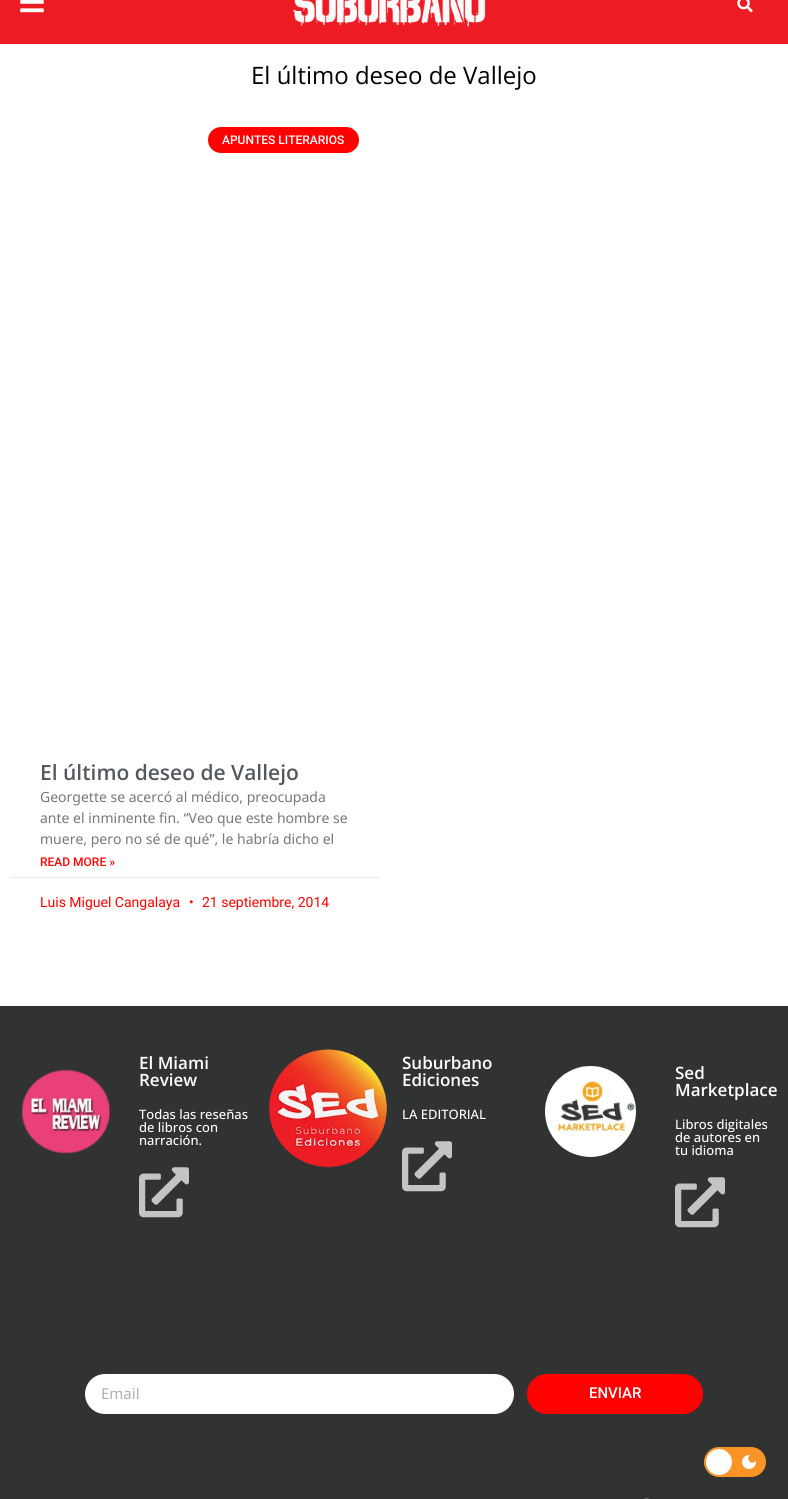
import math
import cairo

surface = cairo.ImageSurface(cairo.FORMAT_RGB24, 788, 1499)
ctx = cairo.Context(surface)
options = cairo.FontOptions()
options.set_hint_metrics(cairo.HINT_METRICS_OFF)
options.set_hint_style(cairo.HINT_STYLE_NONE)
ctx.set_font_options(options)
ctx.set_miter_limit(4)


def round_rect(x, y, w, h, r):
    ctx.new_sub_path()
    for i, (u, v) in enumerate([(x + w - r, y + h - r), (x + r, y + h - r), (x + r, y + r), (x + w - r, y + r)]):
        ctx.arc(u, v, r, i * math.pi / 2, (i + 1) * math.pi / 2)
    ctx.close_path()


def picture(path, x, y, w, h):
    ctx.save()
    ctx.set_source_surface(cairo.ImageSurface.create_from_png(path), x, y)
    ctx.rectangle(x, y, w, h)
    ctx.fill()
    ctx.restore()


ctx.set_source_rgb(1, 1, 1)
ctx.paint()
ctx.set_source_rgb(0.929, 0.11, 0.141)
ctx.rectangle(0, 0, 788, 44)
ctx.fill()
picture("img1.png", 20, 0, 24, 13)
picture("img2.png", 293, 0, 193, 27)
picture("img3.png", 737, 0, 16, 13)
ctx.select_font_face("Open Sans")
ctx.set_font_size(24)
ctx.set_source_rgb(0, 0, 0)
ctx.move_to(251, 84)
ctx.show_text("El último deseo de Vallejo")
ctx.set_source_rgb(1, 0.004, 0.004)
round_rect(208, 127, 151, 26, 13)
ctx.fill()
ctx.select_font_face("Roboto Medium")
ctx.set_font_size(12)
ctx.set_source_rgb(1, 1, 1)
ctx.move_to(222, 144)
ctx.show_text("APUNTES LITERARIOS")
ctx.select_font_face("Open Sans SemiBold")
ctx.set_font_size(21)
ctx.set_source_rgb(0.329, 0.349, 0.373)
ctx.move_to(40, 780)
ctx.show_text("El último deseo de Vallejo")
ctx.select_font_face("Noto Sans")
ctx.set_font_size(14)
ctx.set_source_rgb(0.467, 0.467, 0.467)
ctx.move_to(40, 802)
ctx.show_text("Georgette se acercó al médico, preocupada")
ctx.move_to(40, 823)
ctx.show_text("ante el inminente fin. “Veo que este hombre se")
ctx.move_to(40, 844)
ctx.show_text("muere, pero no sé de qué”, le habría dicho el")
ctx.select_font_face("Roboto Medium")
ctx.set_font_size(12)
ctx.set_source_rgb(1, 0.004, 0.004)
ctx.move_to(40, 866)
ctx.show_text("READ MORE »")
ctx.set_source_rgb(0.918, 0.918, 0.918)
ctx.rectangle(10, 877, 369, 1)
ctx.fill()
ctx.select_font_face("Roboto")
ctx.set_font_size(14)
ctx.set_source_rgb(1, 0.004, 0.004)
ctx.move_to(40, 907)
ctx.show_text("Luis Miguel Cangalaya")
ctx.move_to(189, 907)
ctx.show_text("•")
ctx.move_to(202, 907)
ctx.show_text("21 septiembre, 2014")
ctx.set_source_rgb(0.192, 0.2, 0.196)
ctx.rectangle(0, 1006, 788, 493)
ctx.fill()
picture("img4.png", 21, 1069, 89, 85)
ctx.select_font_face("Open Sans SemiBold")
ctx.set_font_size(17)
ctx.set_source_rgb(1, 1, 1)
ctx.move_to(139, 1069)
ctx.show_text("El Miami")
ctx.move_to(139, 1086)
ctx.show_text("Review")
ctx.select_font_face("Open Sans Medium")
ctx.set_font_size(13)
ctx.move_to(139, 1119)
ctx.show_text("Todas las reseñas")
ctx.move_to(139, 1132)
ctx.show_text("de libros con")
ctx.move_to(139, 1145)
ctx.show_text("narración.")
picture("img5.png", 139, 1167, 50, 51)
picture("img6.png", 269, 1049, 118, 119)
ctx.select_font_face("Open Sans SemiBold")
ctx.set_font_size(17)
ctx.move_to(402, 1069)
ctx.show_text("Suburbano")
ctx.move_to(402, 1086)
ctx.show_text("Ediciones")
ctx.select_font_face("Open Sans Medium")
ctx.set_font_size(13)
ctx.move_to(402, 1119)
ctx.show_text("LA EDITORIAL")
picture("img5.png", 402, 1141, 50, 51)
picture("img7.png", 545, 1066, 91, 91)
ctx.select_font_face("Open Sans SemiBold")
ctx.set_font_size(17)
ctx.move_to(675, 1079)
ctx.show_text("Sed")
ctx.move_to(675, 1096)
ctx.show_text("Marketplace")
ctx.select_font_face("Open Sans Medium")
ctx.set_font_size(13)
ctx.move_to(675, 1129)
ctx.show_text("Libros digitales")
ctx.move_to(675, 1142)
ctx.show_text("de autores en")
ctx.move_to(675, 1155)
ctx.show_text("tu idioma")
picture("img5.png", 675, 1177, 50, 51)
round_rect(85, 1374, 429, 40, 20)
ctx.fill()
ctx.select_font_face("Noto Sans")
ctx.set_font_size(15)
ctx.set_source_rgb(0.686, 0.686, 0.686)
ctx.move_to(101, 1399)
ctx.show_text("Email")
ctx.set_source_rgb(1, 0.004, 0.004)
round_rect(527, 1374, 176, 40, 20)
ctx.fill()
ctx.select_font_face("Roboto Medium")
ctx.set_source_rgb(1, 1, 1)
ctx.move_to(589, 1398)
ctx.show_text("ENVIAR")
picture("img8.png", 644, 1498, 5, 1)
ctx.set_source_rgb(0.984, 0.58, 0.149)
round_rect(704, 1447, 62, 30, 15)
ctx.fill()
ctx.set_source_rgb(1, 1, 1)
ctx.arc(719, 1462, 13, 0, 2 * math.pi)
ctx.fill()
picture("img9.png", 742, 1455, 14, 14)
surface.write_to_png("page.png")
